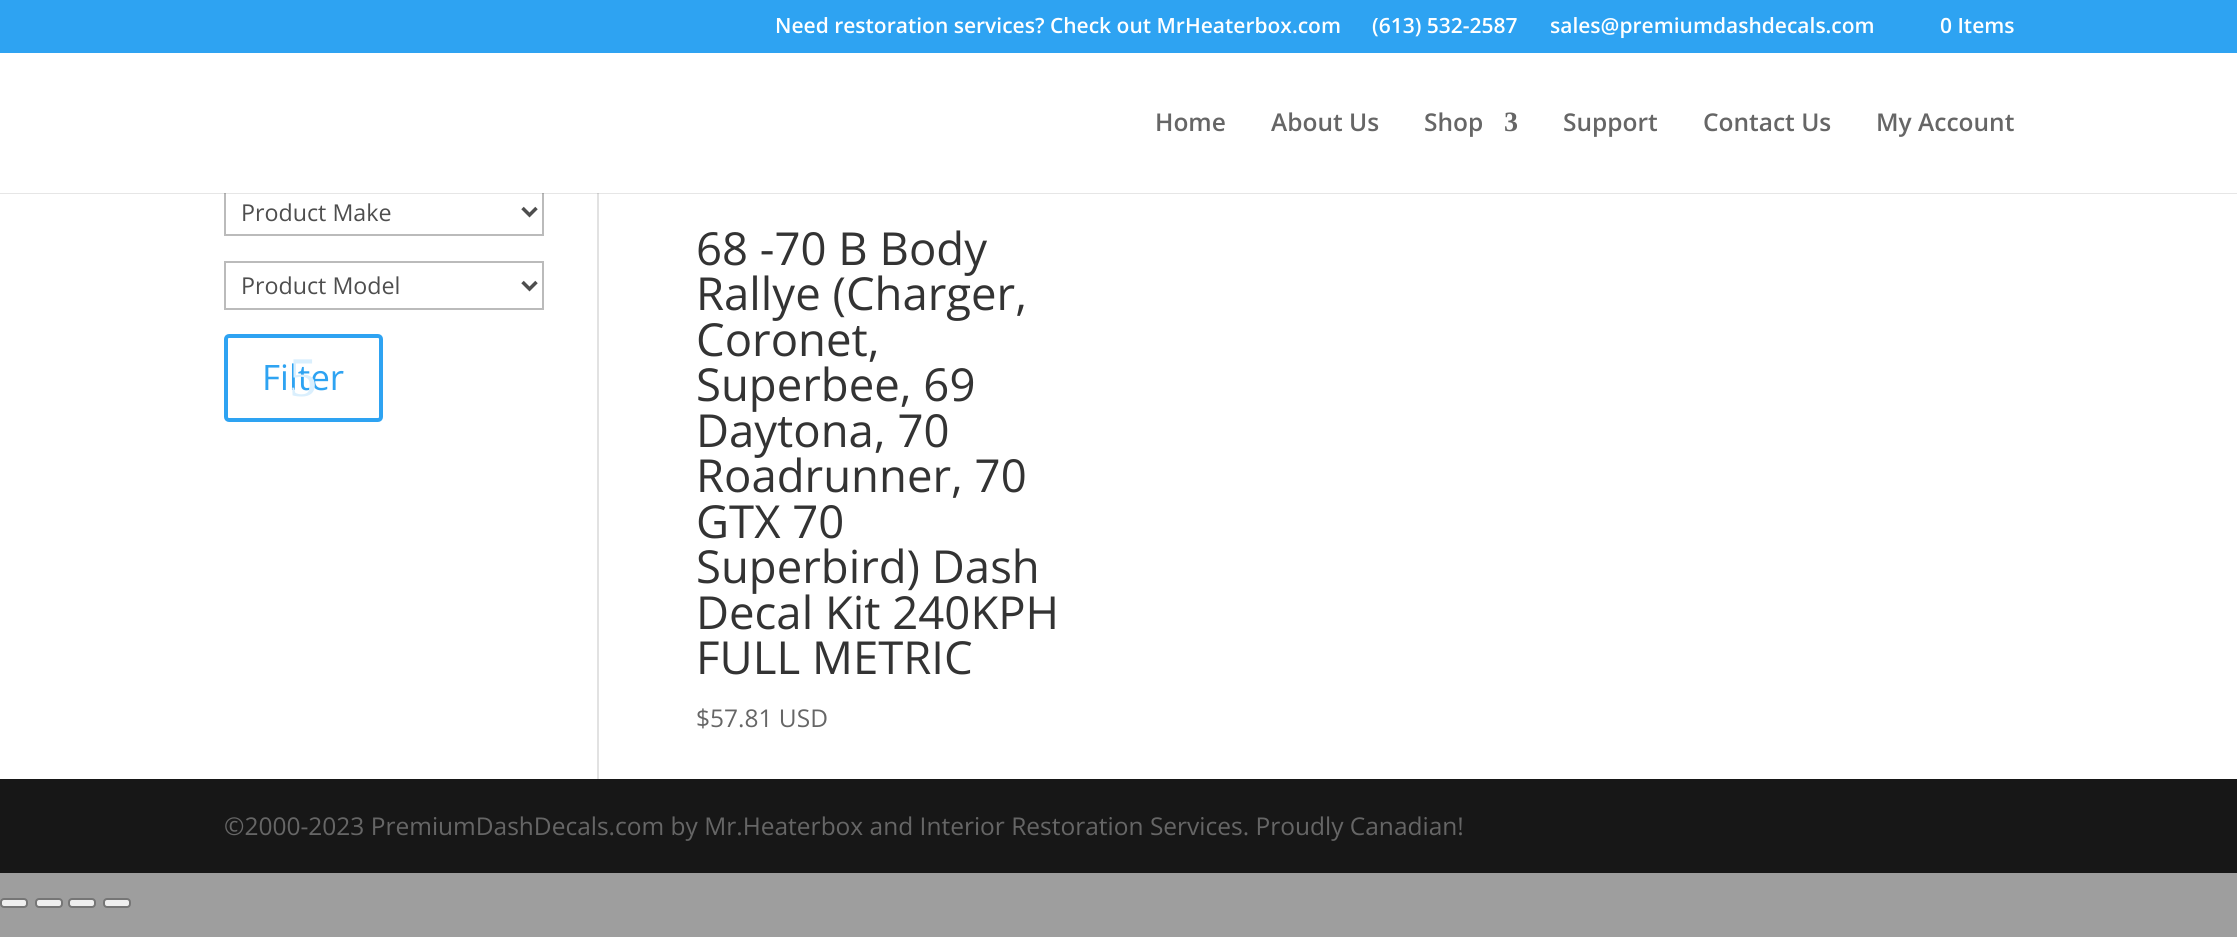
import math
import cairo

surface = cairo.ImageSurface(cairo.FORMAT_RGB24, 2237, 937)
ctx = cairo.Context(surface)
options = cairo.FontOptions()
options.set_hint_metrics(cairo.HINT_METRICS_OFF)
options.set_hint_style(cairo.HINT_STYLE_NONE)
ctx.set_font_options(options)
ctx.set_miter_limit(4)


def round_rect(x, y, w, h, r):
    ctx.new_sub_path()
    for i, (u, v) in enumerate([(x + w - r, y + h - r), (x + r, y + h - r), (x + r, y + r), (x + w - r, y + r)]):
        ctx.arc(u, v, r, i * math.pi / 2, (i + 1) * math.pi / 2)
    ctx.close_path()


ctx.set_source_rgb(0.62, 0.62, 0.62)
ctx.paint()
ctx.set_source_rgb(0.18, 0.639, 0.949)
ctx.rectangle(0, 0, 2237, 53)
ctx.fill()
ctx.select_font_face("Open Sans SemiBold")
ctx.set_font_size(21)
ctx.set_source_rgb(1, 1, 1)
ctx.move_to(775, 33)
ctx.show_text("Need restoration services? Check out MrHeaterbox.com")
ctx.move_to(1372, 33)
ctx.show_text("(613) 532-2587")
ctx.move_to(1550, 33)
ctx.show_text("sales@premiumdashdecals.com")
ctx.move_to(1940, 33)
ctx.show_text("0 Items")
ctx.rectangle(0, 193, 2237, 586)
ctx.fill()
ctx.set_source_rgb(0.886, 0.886, 0.886)
ctx.rectangle(597, 193, 2, 586)
ctx.fill()
ctx.rectangle(225, 188, 318, 47)
ctx.set_source_rgb(0.733, 0.733, 0.733)
ctx.stroke()
ctx.set_source_rgba(0, 0, 0, 0.1)
ctx.rectangle(0, 193, 2237, 1)
ctx.fill()
ctx.set_source_rgb(1, 1, 1)
ctx.rectangle(0, 53, 2237, 140)
ctx.fill()
ctx.set_font_size(24.5)
ctx.set_source_rgb(0.4, 0.4, 0.4)
ctx.move_to(1155, 131)
ctx.show_text("Home")
ctx.move_to(1271, 131)
ctx.show_text("About Us")
ctx.move_to(1424, 131)
ctx.show_text("Shop")
ctx.select_font_face("Liberation Serif", cairo.FONT_SLANT_NORMAL, cairo.FONT_WEIGHT_BOLD)
ctx.set_font_size(28)
ctx.move_to(1504, 131)
ctx.show_text("3")
ctx.select_font_face("Open Sans SemiBold")
ctx.set_font_size(24.5)
ctx.move_to(1563, 131)
ctx.show_text("Support")
ctx.move_to(1703, 131)
ctx.show_text("Contact Us")
ctx.move_to(1876, 131)
ctx.show_text("My Account")
ctx.new_path()
ctx.move_to(522.5, 208)
ctx.line_to(529.5, 215)
ctx.line_to(536.5, 208)
ctx.set_source_rgb(0.306, 0.306, 0.306)
ctx.set_line_width(3.5)
ctx.stroke()
ctx.select_font_face("Open Sans")
ctx.set_font_size(23.25)
ctx.move_to(241, 221)
ctx.show_text("Product Make")
ctx.rectangle(225, 262, 318, 47)
ctx.set_source_rgb(0.733, 0.733, 0.733)
ctx.set_line_width(2)
ctx.stroke()
ctx.new_path()
ctx.move_to(522.5, 282)
ctx.line_to(529.5, 289)
ctx.line_to(536.5, 282)
ctx.set_source_rgb(0.306, 0.306, 0.306)
ctx.set_line_width(3.5)
ctx.stroke()
ctx.move_to(241, 294)
ctx.show_text("Product Model")
round_rect(226, 336, 155, 84, 3)
ctx.set_source_rgb(0.18, 0.639, 0.949)
ctx.set_line_width(4)
ctx.stroke()
ctx.set_font_size(35)
ctx.move_to(262, 390)
ctx.show_text("Filter")
ctx.select_font_face("Liberation Serif")
ctx.set_font_size(56)
ctx.set_source_rgb(0.855, 0.937, 0.992)
ctx.move_to(289, 396)
ctx.show_text("5")
ctx.select_font_face("Open Sans")
ctx.set_font_size(45.5)
ctx.set_source_rgb(0.2, 0.2, 0.2)
ctx.move_to(696, 265)
ctx.show_text("68 -70 B Body")
ctx.move_to(696, 310)
ctx.show_text("Rallye (Charger,")
ctx.move_to(696, 356)
ctx.show_text("Coronet,")
ctx.move_to(696, 401)
ctx.show_text("Superbee, 69")
ctx.move_to(696, 447)
ctx.show_text("Daytona, 70")
ctx.move_to(696, 492)
ctx.show_text("Roadrunner, 70")
ctx.move_to(696, 538)
ctx.show_text("GTX 70")
ctx.move_to(696, 583)
ctx.show_text("Superbird) Dash")
ctx.move_to(696, 629)
ctx.show_text("Decal Kit 240KPH")
ctx.move_to(696, 674)
ctx.show_text("FULL METRIC")
ctx.set_font_size(24.5)
ctx.set_source_rgb(0.4, 0.4, 0.4)
ctx.move_to(696, 727)
ctx.show_text("$57.81 USD")
ctx.set_source_rgb(0.09, 0.09, 0.09)
ctx.rectangle(0, 779, 2237, 94)
ctx.fill()
ctx.set_source_rgb(0.4, 0.4, 0.4)
ctx.move_to(224, 835)
ctx.show_text("©2000-2023 PremiumDashDecals.com by Mr.Heaterbox and Interior Restoration Services. Proudly Canadian!")
ctx.set_source_rgb(0.937, 0.937, 0.937)
round_rect(1, 899, 26, 8, 3)
ctx.fill_preserve()
ctx.set_source_rgb(0.463, 0.463, 0.463)
ctx.set_line_width(2)
ctx.stroke()
ctx.set_source_rgb(0.937, 0.937, 0.937)
round_rect(36, 899, 26, 8, 3)
ctx.fill_preserve()
ctx.set_source_rgb(0.463, 0.463, 0.463)
ctx.stroke()
ctx.set_source_rgb(0.937, 0.937, 0.937)
round_rect(69, 899, 26, 8, 3)
ctx.fill_preserve()
ctx.set_source_rgb(0.463, 0.463, 0.463)
ctx.stroke()
ctx.set_source_rgb(0.937, 0.937, 0.937)
round_rect(104, 899, 26, 8, 3)
ctx.fill_preserve()
ctx.set_source_rgb(0.463, 0.463, 0.463)
ctx.stroke()
surface.write_to_png("page.png")
